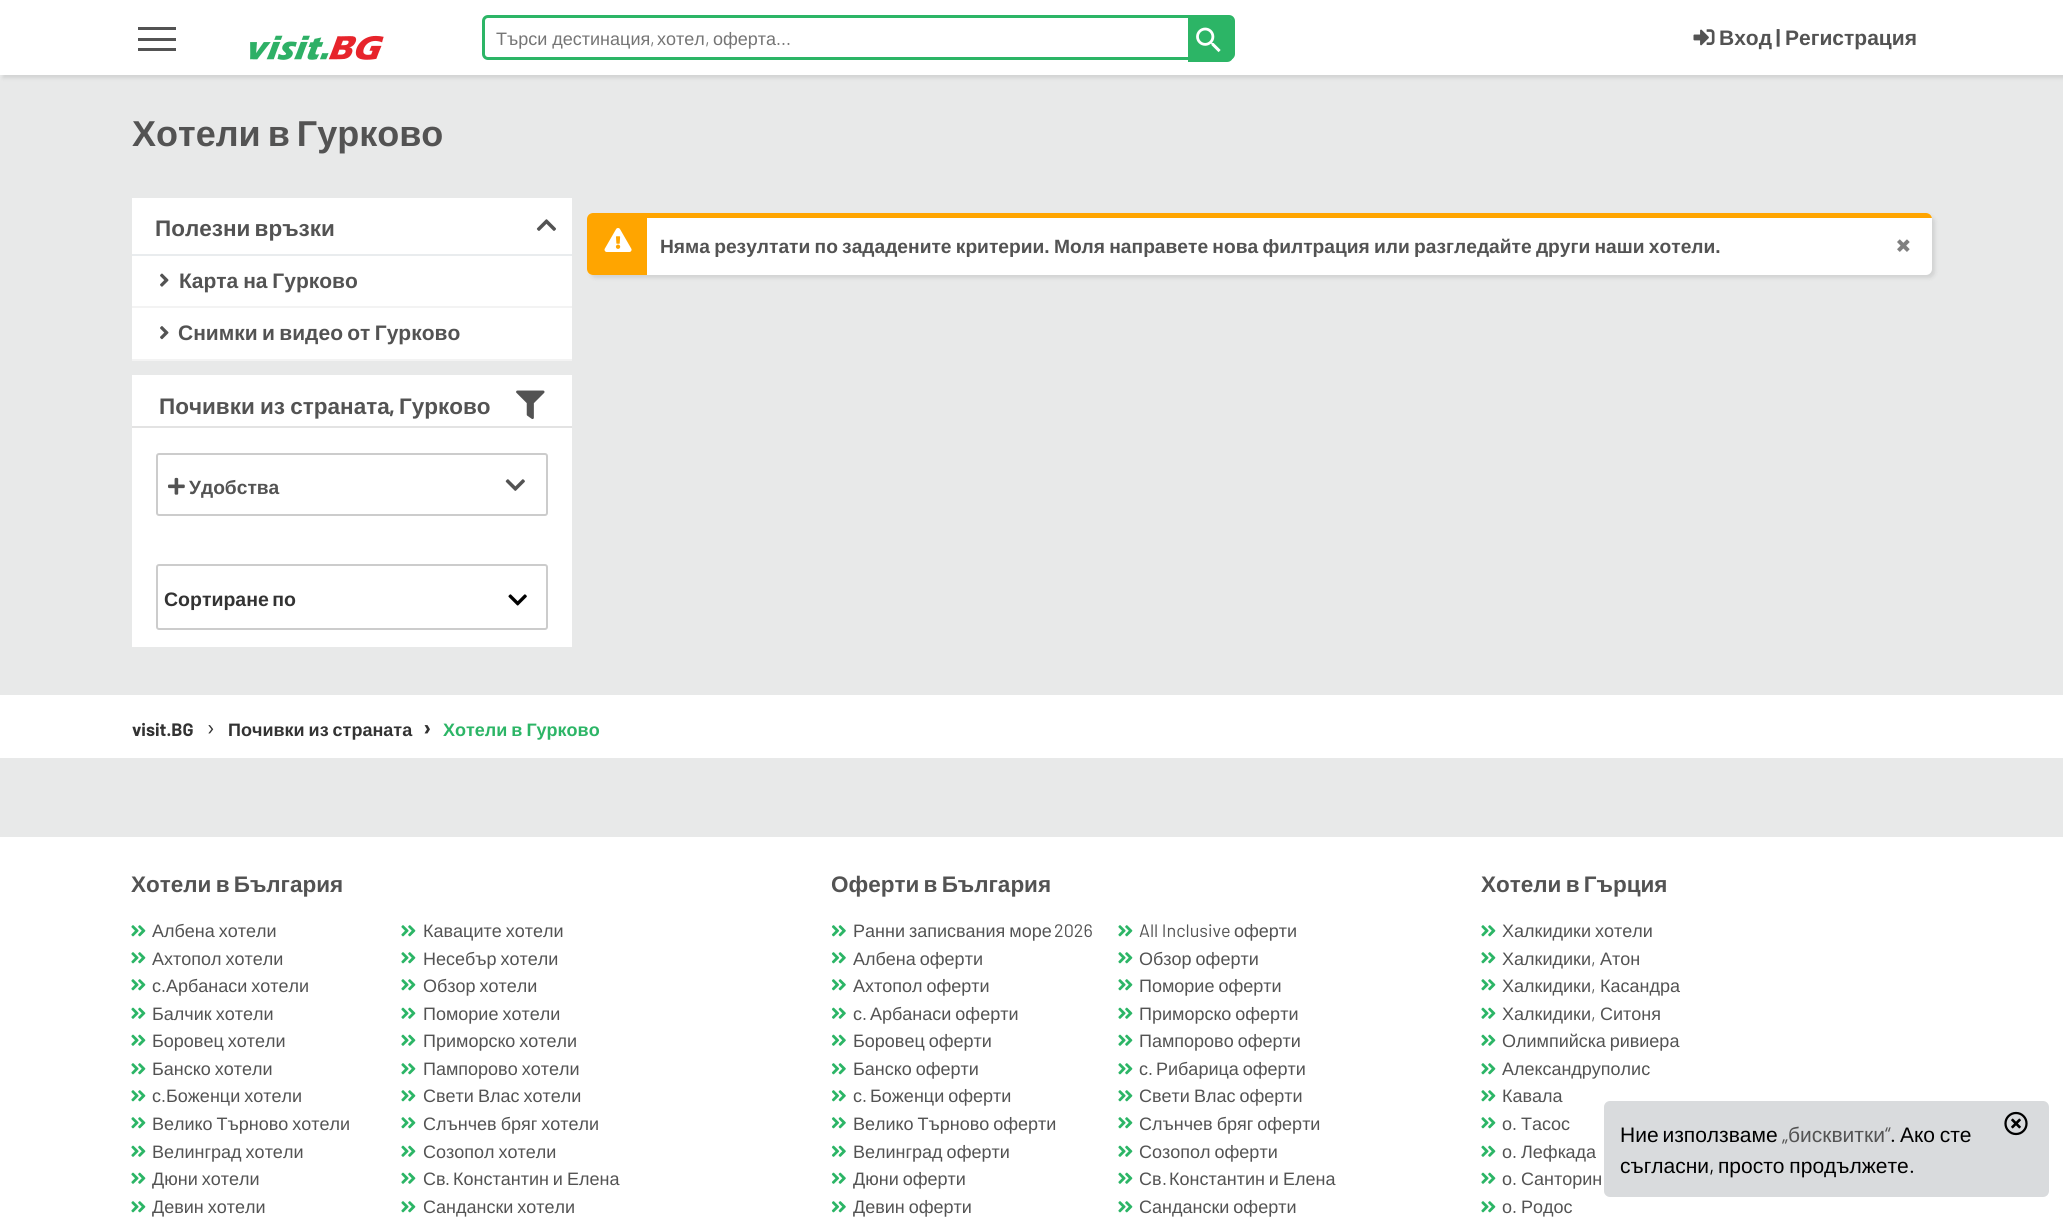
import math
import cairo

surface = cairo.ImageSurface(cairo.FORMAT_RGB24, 2063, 1223)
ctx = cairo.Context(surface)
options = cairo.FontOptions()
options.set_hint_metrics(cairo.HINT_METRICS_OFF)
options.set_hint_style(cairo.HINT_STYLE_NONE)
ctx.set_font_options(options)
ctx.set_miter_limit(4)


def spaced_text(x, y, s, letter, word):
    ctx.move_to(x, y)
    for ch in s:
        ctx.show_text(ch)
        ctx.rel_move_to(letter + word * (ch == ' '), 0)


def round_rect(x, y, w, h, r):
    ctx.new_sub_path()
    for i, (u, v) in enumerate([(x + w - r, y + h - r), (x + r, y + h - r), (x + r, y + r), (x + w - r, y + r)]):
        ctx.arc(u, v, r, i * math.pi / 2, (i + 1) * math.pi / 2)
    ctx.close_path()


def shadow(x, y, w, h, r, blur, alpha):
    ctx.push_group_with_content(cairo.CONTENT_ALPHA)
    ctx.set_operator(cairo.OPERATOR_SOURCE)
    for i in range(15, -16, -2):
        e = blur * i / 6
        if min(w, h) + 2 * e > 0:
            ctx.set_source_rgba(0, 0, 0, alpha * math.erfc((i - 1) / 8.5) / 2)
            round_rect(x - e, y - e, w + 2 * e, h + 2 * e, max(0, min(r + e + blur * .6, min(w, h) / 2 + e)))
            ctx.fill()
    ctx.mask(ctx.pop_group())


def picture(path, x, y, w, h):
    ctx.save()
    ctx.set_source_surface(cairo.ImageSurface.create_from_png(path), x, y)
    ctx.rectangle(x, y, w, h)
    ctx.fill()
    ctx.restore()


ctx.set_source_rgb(0.91, 0.914, 0.914)
ctx.paint()
ctx.set_source_rgb(0, 0, 0)
shadow(3, 3, 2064, 75, 0, 2, 0.1)
ctx.set_source_rgb(1, 1, 1)
ctx.rectangle(0, 0, 2063, 75)
ctx.fill()
ctx.set_source_rgb(0.325, 0.325, 0.325)
ctx.rectangle(138, 27, 38, 3)
ctx.fill()
ctx.rectangle(138, 38, 38, 3)
ctx.fill()
ctx.rectangle(138, 48, 38, 3)
ctx.fill()
picture("img1.png", 250, 35, 134, 25)
round_rect(483.5, 16.5, 750, 42, 4.5)
ctx.set_source_rgb(0.173, 0.71, 0.4)
ctx.set_line_width(3)
ctx.stroke()
ctx.new_path()
ctx.move_to(1188, 17)
ctx.line_to(1227, 17)
ctx.curve_to(1230.5, 17, 1233, 19.5, 1233, 23)
ctx.line_to(1233, 56)
ctx.curve_to(1233, 59.5, 1230.5, 62, 1227, 62)
ctx.line_to(1188, 62)
ctx.close_path()
ctx.fill()
ctx.select_font_face("Liberation Sans")
ctx.set_font_size(18)
ctx.set_source_rgb(0.459, 0.459, 0.459)
ctx.move_to(496, 45)
ctx.show_text("Търси дестинация")
ctx.select_font_face("Barlow")
ctx.move_to(650, 45)
ctx.show_text(",")
ctx.select_font_face("Liberation Sans")
ctx.move_to(657, 45)
ctx.show_text("хотел")
ctx.select_font_face("Barlow")
ctx.move_to(705, 45)
ctx.show_text(",")
ctx.select_font_face("Liberation Sans")
ctx.move_to(713, 45)
ctx.show_text("оферта")
ctx.select_font_face("Barlow")
ctx.move_to(776, 45)
ctx.show_text("...")
picture("img2.png", 1196, 27, 25, 26)
picture("img3.png", 1693, 29, 22, 17)
ctx.select_font_face("Liberation Sans", cairo.FONT_SLANT_NORMAL, cairo.FONT_WEIGHT_BOLD)
ctx.set_font_size(21)
ctx.set_source_rgb(0.325, 0.325, 0.325)
ctx.move_to(1719, 45)
ctx.show_text("Вход")
ctx.select_font_face("Barlow", cairo.FONT_SLANT_NORMAL, cairo.FONT_WEIGHT_BOLD)
ctx.move_to(1776, 45)
ctx.show_text("|")
ctx.select_font_face("Liberation Sans", cairo.FONT_SLANT_NORMAL, cairo.FONT_WEIGHT_BOLD)
ctx.move_to(1785, 45)
ctx.show_text("Регистрация")
ctx.set_font_size(36)
spaced_text(132, 146, "Хотели в Гурково", 0, -3)
ctx.set_source_rgb(1, 1, 1)
ctx.rectangle(132, 198, 440, 161)
ctx.fill()
ctx.set_source_rgb(0.914, 0.922, 0.933)
ctx.rectangle(132, 254, 440, 2)
ctx.fill()
ctx.set_font_size(22.5)
ctx.set_source_rgb(0.325, 0.325, 0.325)
spaced_text(155, 236, "Полезни връзки", 0, -2)
picture("img4.png", 536, 219, 20, 12)
ctx.set_source_rgb(0.953, 0.953, 0.953)
ctx.rectangle(132, 306, 440, 2)
ctx.fill()
picture("img5.png", 160, 273, 9, 14)
ctx.set_font_size(21)
ctx.set_source_rgb(0.325, 0.325, 0.325)
spaced_text(179, 288, "Карта на Гурково", 0, -1)
ctx.set_source_rgb(0.953, 0.953, 0.953)
ctx.rectangle(132, 359, 440, 2)
ctx.fill()
picture("img6.png", 160, 326, 9, 14)
ctx.set_source_rgb(0.325, 0.325, 0.325)
spaced_text(178, 340, "Снимки и видео от Гурково", 0, -1.5)
ctx.set_source_rgb(1, 1, 1)
ctx.rectangle(132, 375, 440, 272)
ctx.fill()
ctx.set_source_rgb(0.89, 0.89, 0.89)
ctx.rectangle(132, 426, 440, 2)
ctx.fill()
ctx.set_font_size(22.5)
ctx.set_source_rgb(0.325, 0.325, 0.325)
spaced_text(159, 414, "Почивки из страната", 0, -1)
ctx.select_font_face("Barlow", cairo.FONT_SLANT_NORMAL, cairo.FONT_WEIGHT_BOLD)
ctx.move_to(389, 414)
ctx.show_text(",")
ctx.select_font_face("Liberation Sans", cairo.FONT_SLANT_NORMAL, cairo.FONT_WEIGHT_BOLD)
ctx.move_to(399, 414)
ctx.show_text("Гурково")
picture("img7.png", 516, 390, 29, 30)
round_rect(157, 454, 390, 61, 2)
ctx.set_source_rgb(0.8, 0.8, 0.8)
ctx.set_line_width(2)
ctx.stroke()
picture("img8.png", 168, 477, 17, 18)
ctx.set_font_size(19.2)
ctx.set_source_rgb(0.325, 0.325, 0.325)
ctx.move_to(189, 494)
ctx.show_text("Удобства")
picture("img9.png", 505, 479, 20, 12)
round_rect(157, 565, 390, 64, 2)
ctx.set_source_rgb(0.8, 0.8, 0.8)
ctx.stroke()
ctx.set_font_size(19.5)
ctx.set_source_rgb(0.2, 0.2, 0.2)
spaced_text(164, 606, "Сортиране по", 0, -2)
picture("img10.png", 508, 594, 19, 12)
ctx.set_source_rgb(0, 0, 0)
shadow(590, 216, 1345, 62, 6, 2, 0.1)
ctx.set_source_rgb(1, 1, 1)
round_rect(587, 213, 1345, 62, 6)
ctx.fill()
ctx.save()
round_rect(587, 213, 1345, 62, 6)
ctx.clip()
ctx.set_source_rgb(1, 0.647, 0)
ctx.rectangle(587, 213, 1345, 5)
ctx.fill()
ctx.new_path()
ctx.move_to(587, 218)
ctx.line_to(647, 218)
ctx.line_to(647, 275)
ctx.line_to(593, 275)
ctx.curve_to(589.5, 275, 587, 272.5, 587, 269)
ctx.close_path()
ctx.fill()
ctx.restore()
picture("img11.png", 604, 228, 28, 24)
ctx.set_font_size(19.2)
ctx.set_source_rgb(0.325, 0.325, 0.325)
spaced_text(660, 253, "Няма резултати по зададените критерии. Моля направете нова филтрация или разгледайте други наши хотели.", 0, -1.1)
ctx.select_font_face("Barlow", cairo.FONT_SLANT_NORMAL, cairo.FONT_WEIGHT_BOLD)
ctx.set_font_size(33)
ctx.set_source_rgb(0.502, 0.502, 0.502)
ctx.move_to(1896, 256)
ctx.show_text("×")
ctx.set_source_rgb(1, 1, 1)
ctx.rectangle(0, 695, 2063, 63)
ctx.fill()
ctx.set_font_size(18)
ctx.set_source_rgb(0.2, 0.2, 0.2)
ctx.move_to(132, 736)
ctx.show_text("visit.BG")
ctx.select_font_face("Barlow")
ctx.set_font_size(24)
ctx.move_to(206, 736)
ctx.show_text("›")
ctx.select_font_face("Liberation Sans", cairo.FONT_SLANT_NORMAL, cairo.FONT_WEIGHT_BOLD)
ctx.set_font_size(18)
spaced_text(228, 736, "Почивки из страната", 0, -1)
ctx.select_font_face("Barlow", cairo.FONT_SLANT_NORMAL, cairo.FONT_WEIGHT_BOLD)
ctx.set_font_size(24)
ctx.move_to(423, 736)
ctx.show_text("›")
ctx.select_font_face("Liberation Sans", cairo.FONT_SLANT_NORMAL, cairo.FONT_WEIGHT_BOLD)
ctx.set_font_size(18)
ctx.set_source_rgb(0.173, 0.71, 0.4)
spaced_text(443, 736, "Хотели в Гурково", 0, -1)
ctx.set_source_rgb(1, 1, 1)
ctx.rectangle(0, 837, 2063, 386)
ctx.fill()
ctx.set_font_size(22.5)
ctx.set_source_rgb(0.325, 0.325, 0.325)
spaced_text(131, 892, "Хотели в България", 0, -2)
picture("img12.png", 131, 925, 15, 12)
ctx.select_font_face("Liberation Sans")
ctx.set_font_size(18)
spaced_text(152, 937, "Албена хотели", 0, -1)
picture("img12.png", 131, 952, 15, 12)
spaced_text(152, 965, "Ахтопол хотели", 0, -1)
picture("img12.png", 131, 979, 15, 12)
ctx.move_to(152, 992)
ctx.show_text("с")
ctx.select_font_face("Barlow")
ctx.move_to(161, 992)
ctx.show_text(".")
ctx.select_font_face("Liberation Sans")
spaced_text(166, 992, "Арбанаси хотели", 0, -1)
picture("img13.png", 131, 1007, 15, 12)
spaced_text(152, 1020, "Балчик хотели", 0, -1)
picture("img13.png", 131, 1034, 15, 12)
spaced_text(152, 1047, "Боровец хотели", 0, -1)
picture("img12.png", 131, 1063, 15, 12)
spaced_text(152, 1075, "Банско хотели", 0, -1)
picture("img12.png", 131, 1090, 15, 12)
ctx.move_to(152, 1102)
ctx.show_text("с")
ctx.select_font_face("Barlow")
ctx.move_to(161, 1102)
ctx.show_text(".")
ctx.select_font_face("Liberation Sans")
spaced_text(166, 1102, "Боженци хотели", 0, -1)
picture("img12.png", 131, 1117, 15, 12)
spaced_text(152, 1130, "Велико Търново хотели", 0, -1)
picture("img13.png", 131, 1145, 15, 12)
spaced_text(152, 1158, "Велинград хотели", 0, -1)
picture("img13.png", 131, 1172, 15, 12)
spaced_text(152, 1185, "Дюни хотели", 0, -1)
picture("img12.png", 131, 1201, 15, 12)
spaced_text(152, 1213, "Девин хотели", 0, -1)
picture("img12.png", 401, 925, 15, 12)
spaced_text(423, 937, "Каваците хотели", 0, -1)
picture("img12.png", 401, 952, 15, 12)
spaced_text(423, 965, "Несебър хотели", 0, -1)
picture("img12.png", 401, 979, 15, 12)
spaced_text(423, 992, "Обзор хотели", 0, -1)
picture("img13.png", 401, 1007, 15, 12)
spaced_text(423, 1020, "Поморие хотели", 0, -1)
picture("img13.png", 401, 1034, 15, 12)
spaced_text(423, 1047, "Приморско хотели", 0, -1)
picture("img12.png", 401, 1063, 15, 12)
spaced_text(423, 1075, "Пампорово хотели", 0, -1)
picture("img12.png", 401, 1090, 15, 12)
spaced_text(423, 1102, "Свети Влас хотели", 0, -1)
picture("img12.png", 401, 1117, 15, 12)
spaced_text(423, 1130, "Слънчев бряг хотели", 0, -1)
picture("img13.png", 401, 1145, 15, 12)
spaced_text(423, 1158, "Созопол хотели", 0, -1)
picture("img13.png", 401, 1172, 15, 12)
ctx.move_to(423, 1185)
ctx.show_text("Св")
ctx.select_font_face("Barlow")
ctx.move_to(445, 1185)
ctx.show_text(".")
ctx.select_font_face("Liberation Sans")
spaced_text(453, 1185, "Константин и Елена", 0, -1)
picture("img12.png", 401, 1201, 15, 12)
spaced_text(423, 1213, "Сандански хотели", 0, -1)
ctx.select_font_face("Liberation Sans", cairo.FONT_SLANT_NORMAL, cairo.FONT_WEIGHT_BOLD)
ctx.set_font_size(22.5)
spaced_text(831, 892, "Оферти в България", 0, -2)
picture("img14.png", 831, 925, 15, 12)
ctx.select_font_face("Liberation Sans")
ctx.set_font_size(18)
spaced_text(853, 937, "Ранни записвания море", 0, -1)
ctx.select_font_face("Barlow")
ctx.move_to(1054, 937)
ctx.show_text("2026")
picture("img14.png", 831, 952, 15, 12)
ctx.select_font_face("Liberation Sans")
spaced_text(853, 965, "Албена оферти", 0, -1)
picture("img14.png", 831, 979, 15, 12)
spaced_text(853, 992, "Ахтопол оферти", 0, -1)
picture("img15.png", 831, 1007, 15, 12)
ctx.move_to(853, 1020)
ctx.show_text("с")
ctx.select_font_face("Barlow")
ctx.move_to(862, 1020)
ctx.show_text(".")
ctx.select_font_face("Liberation Sans")
spaced_text(870, 1020, "Арбанаси оферти", 0, -1)
picture("img15.png", 831, 1034, 15, 12)
spaced_text(853, 1047, "Боровец оферти", 0, -1)
picture("img14.png", 831, 1063, 15, 12)
spaced_text(853, 1075, "Банско оферти", 0, -1)
picture("img14.png", 831, 1090, 15, 12)
ctx.move_to(853, 1102)
ctx.show_text("с")
ctx.select_font_face("Barlow")
ctx.move_to(862, 1102)
ctx.show_text(".")
ctx.select_font_face("Liberation Sans")
spaced_text(870, 1102, "Боженци оферти", 0, -1)
picture("img14.png", 831, 1117, 15, 12)
spaced_text(853, 1130, "Велико Търново оферти", 0, -1)
picture("img15.png", 831, 1145, 15, 12)
spaced_text(853, 1158, "Велинград оферти", 0, -1)
picture("img15.png", 831, 1172, 15, 12)
spaced_text(853, 1185, "Дюни оферти", 0, -1)
picture("img14.png", 831, 1201, 15, 12)
spaced_text(853, 1213, "Девин оферти", 0, -1)
picture("img12.png", 1118, 925, 15, 12)
ctx.select_font_face("Barlow")
ctx.move_to(1139, 937)
ctx.show_text("All Inclusive")
ctx.select_font_face("Liberation Sans")
ctx.move_to(1234, 937)
ctx.show_text("оферти")
picture("img12.png", 1118, 952, 15, 12)
spaced_text(1139, 965, "Обзор оферти", 0, -1)
picture("img12.png", 1118, 979, 15, 12)
spaced_text(1139, 992, "Поморие оферти", 0, -1)
picture("img13.png", 1118, 1007, 15, 12)
spaced_text(1139, 1020, "Приморско оферти", 0, -1)
picture("img13.png", 1118, 1034, 15, 12)
spaced_text(1139, 1047, "Пампорово оферти", 0, -1)
picture("img12.png", 1118, 1063, 15, 12)
ctx.move_to(1139, 1075)
ctx.show_text("с")
ctx.select_font_face("Barlow")
ctx.move_to(1148, 1075)
ctx.show_text(".")
ctx.select_font_face("Liberation Sans")
spaced_text(1156, 1075, "Рибарица оферти", 0, -1)
picture("img12.png", 1118, 1090, 15, 12)
spaced_text(1139, 1102, "Свети Влас оферти", 0, -1)
picture("img12.png", 1118, 1117, 15, 12)
spaced_text(1139, 1130, "Слънчев бряг оферти", 0, -1)
picture("img13.png", 1118, 1145, 15, 12)
spaced_text(1139, 1158, "Созопол оферти", 0, -1)
picture("img13.png", 1118, 1172, 15, 12)
ctx.move_to(1139, 1185)
ctx.show_text("Св")
ctx.select_font_face("Barlow")
ctx.move_to(1162, 1185)
ctx.show_text(".")
ctx.select_font_face("Liberation Sans")
spaced_text(1169, 1185, "Константин и Елена", 0, -1)
picture("img12.png", 1118, 1201, 15, 12)
spaced_text(1139, 1213, "Сандански оферти", 0, -1)
ctx.select_font_face("Liberation Sans", cairo.FONT_SLANT_NORMAL, cairo.FONT_WEIGHT_BOLD)
ctx.set_font_size(22.5)
spaced_text(1481, 892, "Хотели в Гърция", 0, -2)
picture("img12.png", 1481, 925, 15, 12)
ctx.select_font_face("Liberation Sans")
ctx.set_font_size(18)
spaced_text(1502, 937, "Халкидики хотели", 0, -1)
picture("img12.png", 1481, 952, 15, 12)
ctx.move_to(1502, 965)
ctx.show_text("Халкидики")
ctx.select_font_face("Barlow")
ctx.move_to(1591, 965)
ctx.show_text(",")
ctx.select_font_face("Liberation Sans")
ctx.move_to(1600, 965)
ctx.show_text("Атон")
picture("img12.png", 1481, 979, 15, 12)
ctx.move_to(1502, 992)
ctx.show_text("Халкидики")
ctx.select_font_face("Barlow")
ctx.move_to(1591, 992)
ctx.show_text(",")
ctx.select_font_face("Liberation Sans")
ctx.move_to(1600, 992)
ctx.show_text("Касандра")
picture("img13.png", 1481, 1007, 15, 12)
ctx.move_to(1502, 1020)
ctx.show_text("Халкидики")
ctx.select_font_face("Barlow")
ctx.move_to(1591, 1020)
ctx.show_text(",")
ctx.select_font_face("Liberation Sans")
ctx.move_to(1600, 1020)
ctx.show_text("Ситоня")
picture("img13.png", 1481, 1034, 15, 12)
spaced_text(1502, 1047, "Олимпийска ривиера", 0, -1)
picture("img12.png", 1481, 1063, 15, 12)
ctx.move_to(1502, 1075)
ctx.show_text("Александруполис")
picture("img12.png", 1481, 1090, 15, 12)
ctx.move_to(1502, 1102)
ctx.show_text("Кавала")
picture("img12.png", 1481, 1117, 15, 12)
ctx.move_to(1502, 1130)
ctx.show_text("о")
ctx.select_font_face("Barlow")
ctx.move_to(1512, 1130)
ctx.show_text(".")
ctx.select_font_face("Liberation Sans")
ctx.move_to(1521, 1130)
ctx.show_text("Тасос")
picture("img13.png", 1481, 1145, 15, 12)
ctx.move_to(1502, 1158)
ctx.show_text("о")
ctx.select_font_face("Barlow")
ctx.move_to(1512, 1158)
ctx.show_text(".")
ctx.select_font_face("Liberation Sans")
ctx.move_to(1521, 1158)
ctx.show_text("Лефкада")
picture("img13.png", 1481, 1172, 15, 12)
ctx.move_to(1502, 1185)
ctx.show_text("о")
ctx.select_font_face("Barlow")
ctx.move_to(1512, 1185)
ctx.show_text(".")
ctx.select_font_face("Liberation Sans")
ctx.move_to(1521, 1185)
ctx.show_text("Санторин")
picture("img12.png", 1481, 1201, 15, 12)
ctx.move_to(1502, 1213)
ctx.show_text("о")
ctx.select_font_face("Barlow")
ctx.move_to(1512, 1213)
ctx.show_text(".")
ctx.select_font_face("Liberation Sans")
ctx.move_to(1521, 1213)
ctx.show_text("Родос")
ctx.set_source_rgba(0.8, 0.812, 0.82, 0.75)
round_rect(1604, 1101, 445, 96, 6)
ctx.fill()
picture("img16.png", 2004, 1111, 24, 25)
ctx.set_font_size(21)
ctx.set_source_rgb(0, 0, 0)
spaced_text(1620, 1142, "Ние използваме", 0, -2)
ctx.select_font_face("Barlow")
ctx.set_source_rgb(0.325, 0.325, 0.325)
ctx.move_to(1782, 1142)
ctx.show_text("„")
ctx.select_font_face("Liberation Sans")
ctx.move_to(1788, 1142)
ctx.show_text("бисквитки")
ctx.select_font_face("Barlow")
ctx.move_to(1885, 1142)
ctx.show_text("“")
ctx.set_source_rgb(0, 0, 0)
ctx.move_to(1890, 1142)
ctx.show_text(".")
ctx.select_font_face("Liberation Sans")
spaced_text(1900, 1142, "Ако сте", 0, -1)
ctx.move_to(1620, 1173)
ctx.show_text("съгласни")
ctx.select_font_face("Barlow")
ctx.move_to(1709, 1173)
ctx.show_text(",")
ctx.select_font_face("Liberation Sans")
spaced_text(1718, 1173, "просто продължете", 0, -1)
ctx.select_font_face("Barlow")
ctx.move_to(1909, 1173)
ctx.show_text(".")
surface.write_to_png("page.png")
